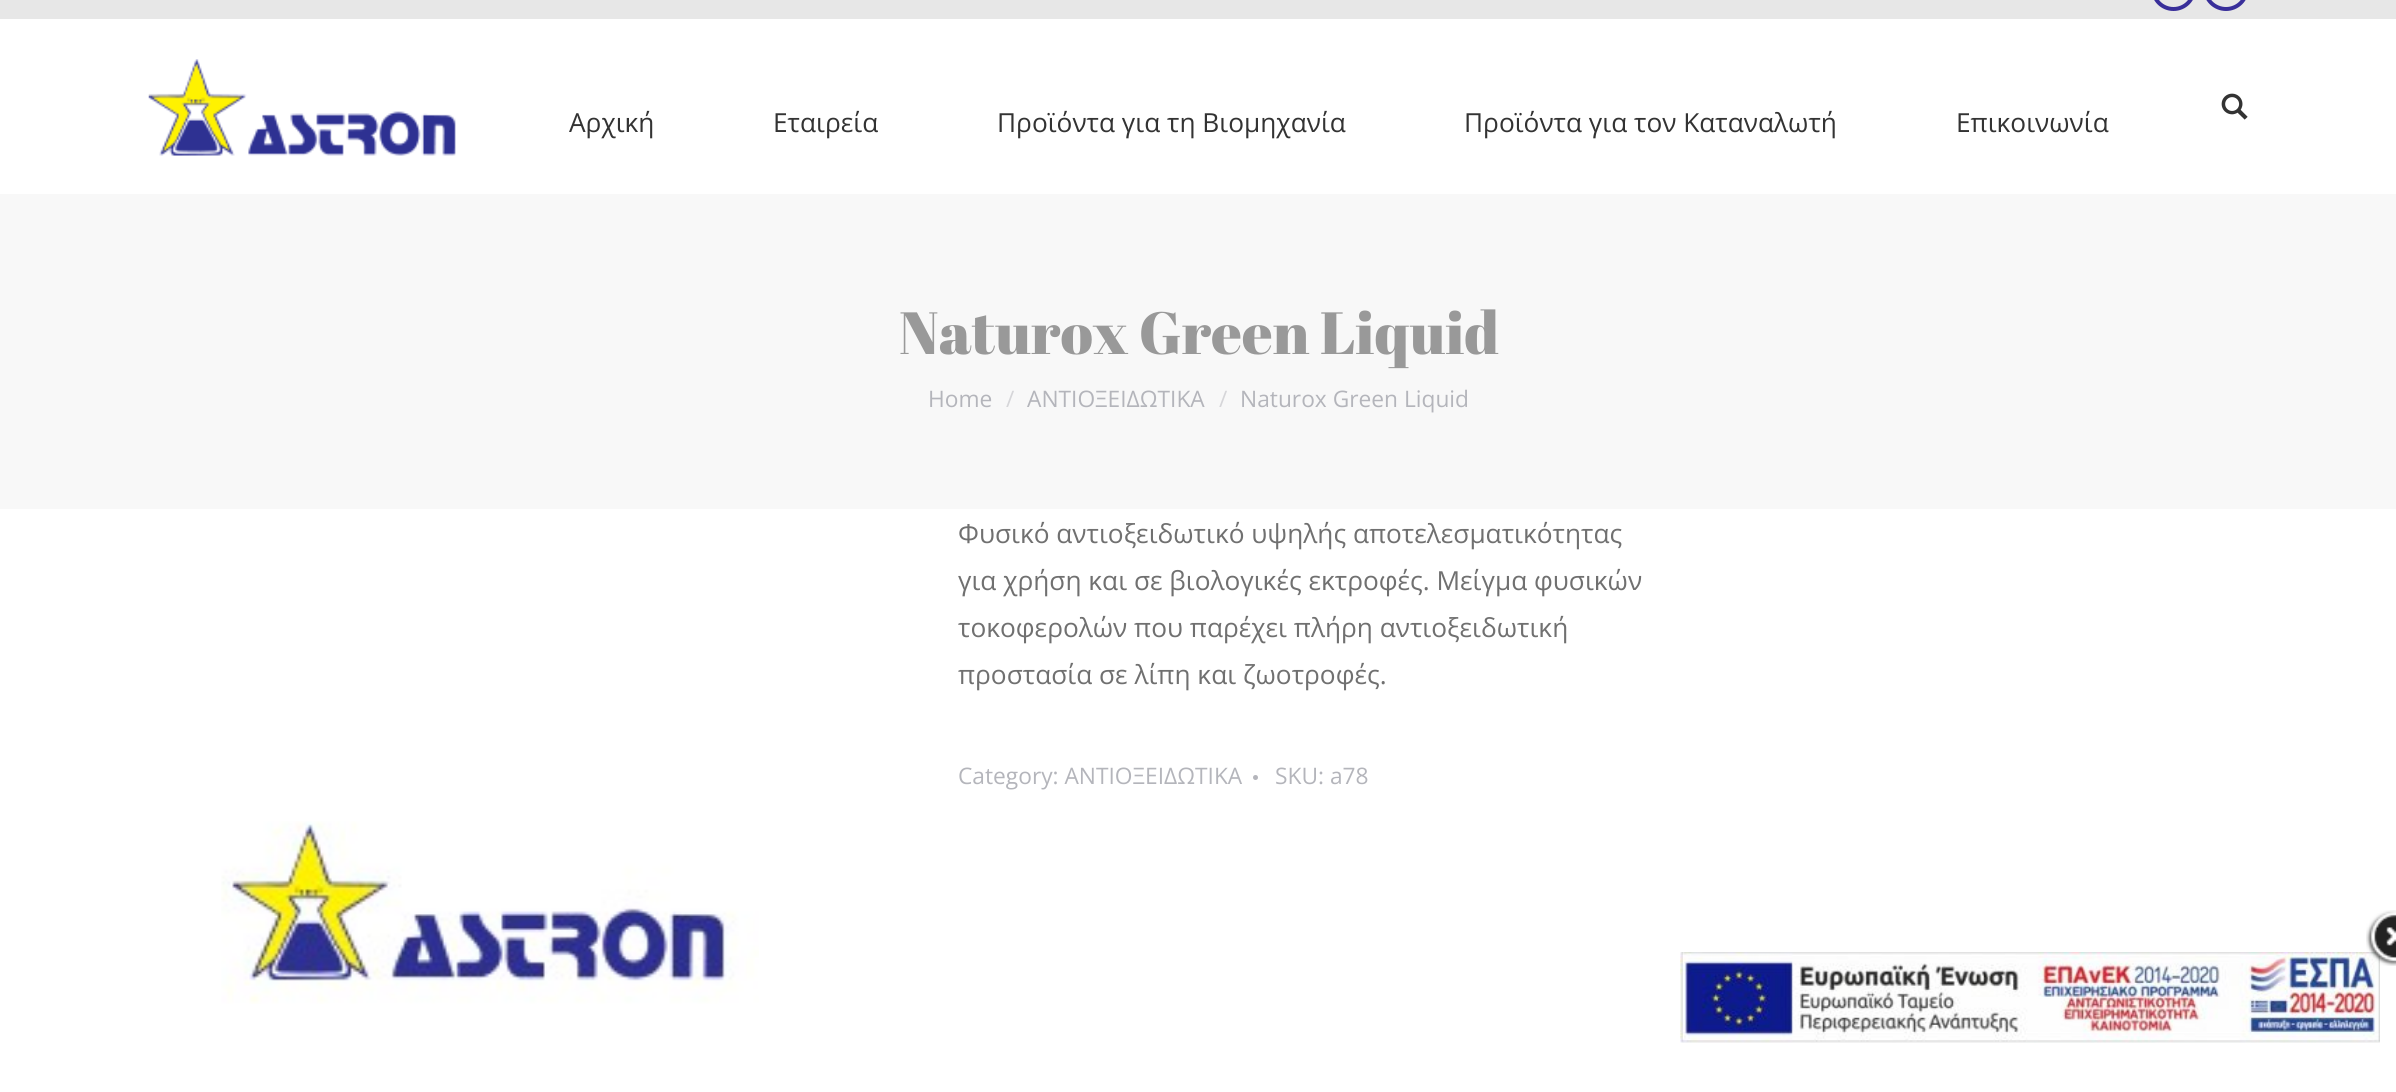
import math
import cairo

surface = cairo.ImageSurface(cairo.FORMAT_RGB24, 2396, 1092)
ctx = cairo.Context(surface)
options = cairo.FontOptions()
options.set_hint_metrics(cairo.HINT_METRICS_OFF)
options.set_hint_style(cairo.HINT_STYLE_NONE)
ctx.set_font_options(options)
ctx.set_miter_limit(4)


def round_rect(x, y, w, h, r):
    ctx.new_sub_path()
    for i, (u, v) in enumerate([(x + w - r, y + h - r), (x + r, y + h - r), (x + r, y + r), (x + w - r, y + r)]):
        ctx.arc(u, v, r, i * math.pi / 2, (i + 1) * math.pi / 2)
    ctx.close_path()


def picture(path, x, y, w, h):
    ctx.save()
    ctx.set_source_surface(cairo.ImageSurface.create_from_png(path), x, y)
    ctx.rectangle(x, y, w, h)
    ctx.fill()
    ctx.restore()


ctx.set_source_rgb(1, 1, 1)
ctx.paint()
ctx.set_source_rgb(0.906, 0.906, 0.906)
ctx.rectangle(0, 0, 2396, 19)
ctx.fill()
round_rect(2153, -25, 41, 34, 20.5)
ctx.set_source_rgb(0.224, 0.184, 0.604)
ctx.set_line_width(4)
ctx.stroke()
round_rect(2205, -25, 42, 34, 21)
ctx.stroke()
picture("img1.png", 148, 59, 308, 97)
picture("img2.png", 2221, 93, 27, 27)
ctx.select_font_face("Open Sans")
ctx.set_font_size(26.25)
ctx.set_source_rgb(0.2, 0.2, 0.2)
ctx.move_to(569, 132)
ctx.show_text("Αρχική")
ctx.move_to(773, 132)
ctx.show_text("Εταιρεία")
ctx.move_to(997, 132)
ctx.show_text("Προϊόντα για τη Βιομηχανία")
ctx.move_to(1464, 132)
ctx.show_text("Προϊόντα για τον Καταναλωτή")
ctx.move_to(1956, 132)
ctx.show_text("Επικοινωνία")
ctx.set_source_rgb(0.969, 0.969, 0.969)
ctx.rectangle(0, 194, 2396, 315)
ctx.fill()
ctx.select_font_face("Abril Fatface")
ctx.set_font_size(59.5)
ctx.set_source_rgb(0.6, 0.6, 0.6)
ctx.move_to(899, 354)
ctx.show_text("Naturox Green Liquid")
ctx.select_font_face("Open Sans")
ctx.set_font_size(22.75)
ctx.set_source_rgb(0.706, 0.71, 0.733)
ctx.move_to(928, 407)
ctx.show_text("Home")
ctx.set_source_rgb(0.839, 0.839, 0.851)
ctx.move_to(1006, 407)
ctx.show_text("/")
ctx.set_source_rgb(0.706, 0.71, 0.733)
ctx.move_to(1027, 407)
ctx.show_text("ΑΝΤΙΟΞΕΙΔΩΤΙΚΑ")
ctx.set_source_rgb(0.839, 0.839, 0.851)
ctx.move_to(1219, 407)
ctx.show_text("/")
ctx.set_source_rgb(0.706, 0.71, 0.733)
ctx.move_to(1240, 407)
ctx.show_text("Naturox Green Liquid")
ctx.set_font_size(26.25)
ctx.set_source_rgb(0.439, 0.439, 0.439)
ctx.move_to(958, 543)
ctx.show_text("Φυσικό αντιοξειδωτικό υψηλής αποτελεσματικότητας")
ctx.move_to(958, 590)
ctx.show_text("για χρήση και σε βιολογικές εκτροφές. Μείγμα φυσικών")
ctx.move_to(958, 637)
ctx.show_text("τοκοφερολών που παρέχει πλήρη αντιοξειδωτική")
ctx.move_to(958, 684)
ctx.show_text("προστασία σε λίπη και ζωοτροφές.")
ctx.set_font_size(22.75)
ctx.set_source_rgb(0.706, 0.71, 0.733)
ctx.move_to(958, 784)
ctx.show_text("Category: ΑΝΤΙΟΞΕΙΔΩΤΙΚΑ")
ctx.new_path()
ctx.arc(1255.5, 777.5, 2.5, 0, 2 * math.pi)
ctx.fill()
ctx.move_to(1275, 784)
ctx.show_text("SKU: a78")
picture("img3.png", 221, 821, 538, 183)
picture("img5.png", 1680, 952, 700, 91)
picture("img4.png", 2366, 910, 30, 56)
surface.write_to_png("page.png")
